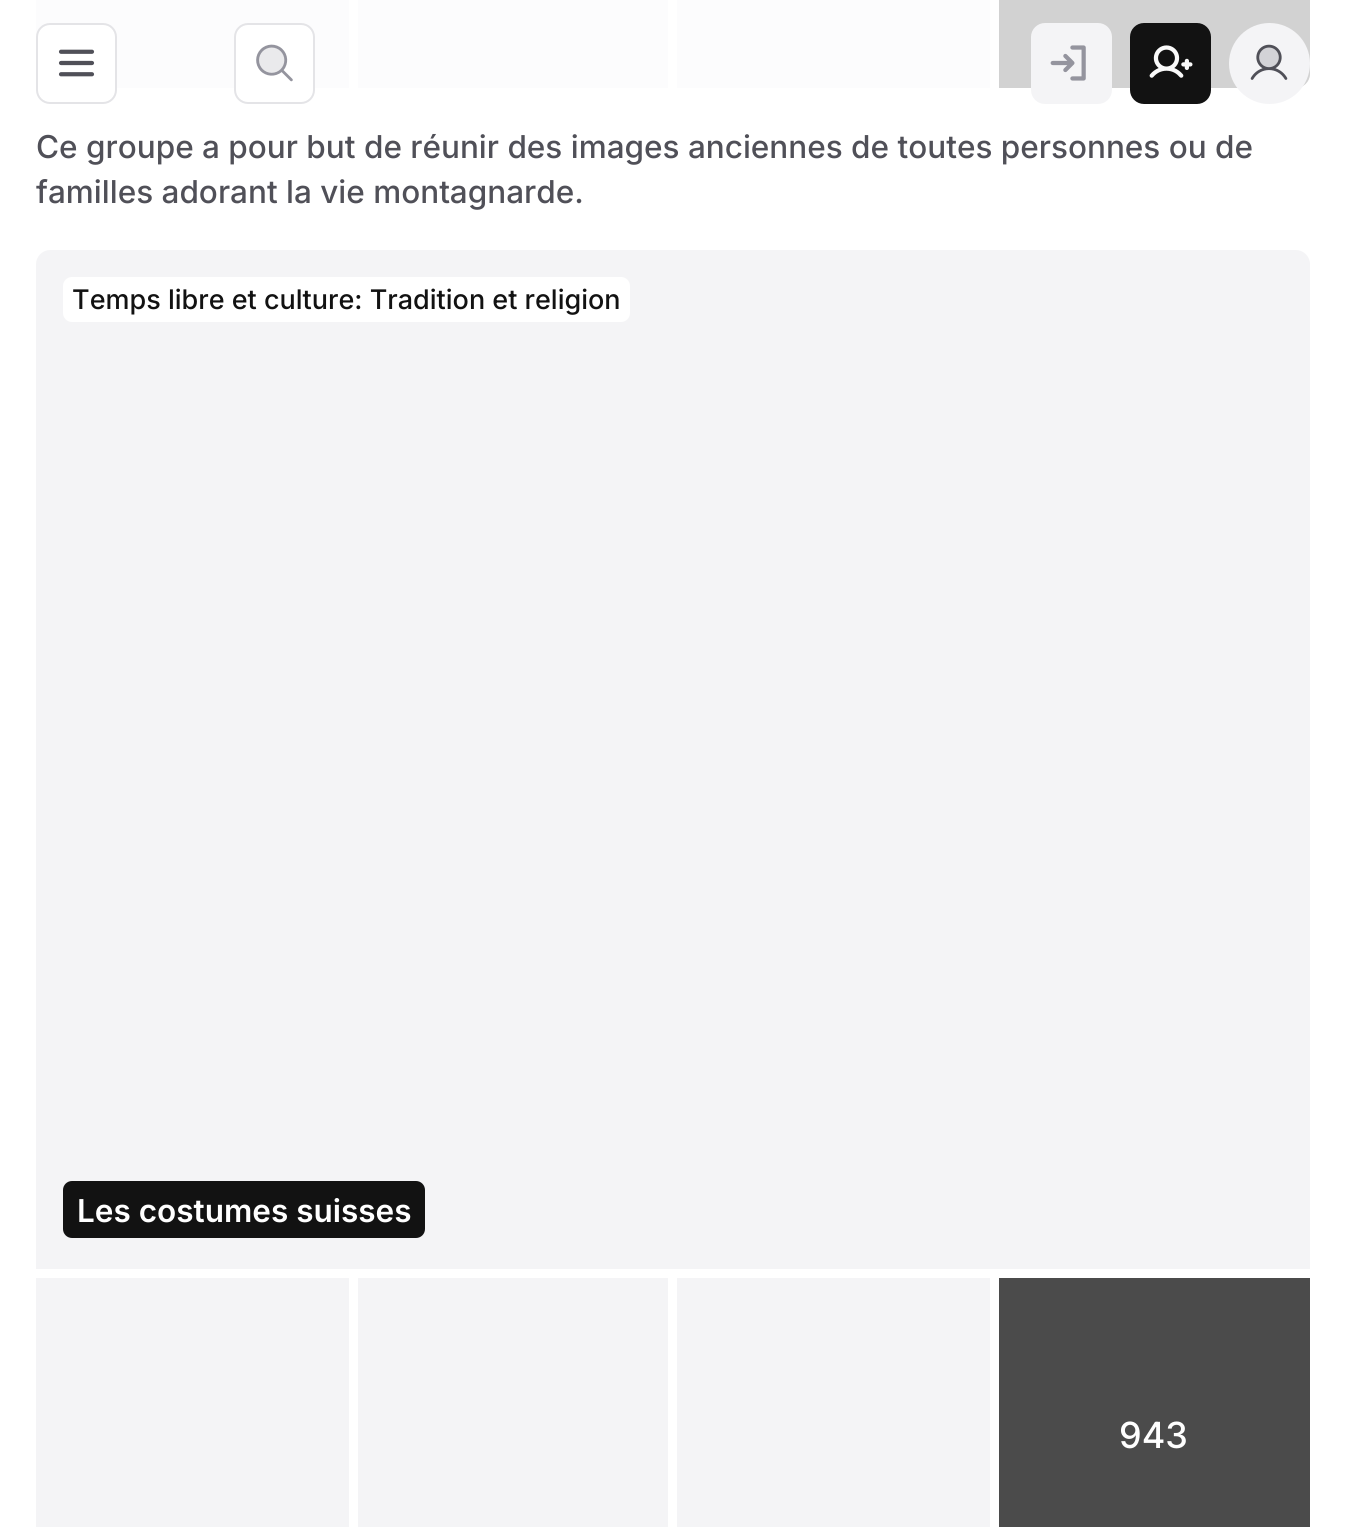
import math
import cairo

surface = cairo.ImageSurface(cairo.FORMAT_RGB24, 1345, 1527)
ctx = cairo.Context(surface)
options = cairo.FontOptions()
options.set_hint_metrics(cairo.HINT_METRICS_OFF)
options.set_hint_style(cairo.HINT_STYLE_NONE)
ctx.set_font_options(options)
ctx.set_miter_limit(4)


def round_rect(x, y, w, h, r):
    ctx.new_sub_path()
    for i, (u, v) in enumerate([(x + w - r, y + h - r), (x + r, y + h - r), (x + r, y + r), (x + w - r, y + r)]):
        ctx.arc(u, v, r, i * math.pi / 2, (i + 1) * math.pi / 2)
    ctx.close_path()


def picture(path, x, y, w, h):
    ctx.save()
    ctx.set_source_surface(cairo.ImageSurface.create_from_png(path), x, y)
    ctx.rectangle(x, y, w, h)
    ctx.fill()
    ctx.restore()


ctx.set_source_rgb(1, 1, 1)
ctx.paint()
ctx.set_source_rgb(0.988, 0.988, 0.992)
ctx.rectangle(36, 0, 313, 88)
ctx.fill()
ctx.set_source_rgb(1, 1, 1)
round_rect(37, 24, 79, 79, 13)
ctx.fill_preserve()
ctx.set_source_rgb(0.894, 0.894, 0.906)
ctx.stroke()
picture("img1.png", 58, 49, 37, 28)
ctx.set_source_rgb(1, 1, 1)
round_rect(235, 24, 79, 79, 13)
ctx.fill_preserve()
ctx.set_source_rgb(0.894, 0.894, 0.906)
ctx.stroke()
picture("img2.png", 256, 44, 37, 38)
ctx.set_source_rgb(0.988, 0.988, 0.992)
ctx.new_path()
ctx.move_to(999, -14)
ctx.line_to(1310, -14)
ctx.line_to(1310, 74)
ctx.curve_to(1310, 81.5, 1303.5, 88, 1296, 88)
ctx.line_to(999, 88)
ctx.close_path()
ctx.fill()
ctx.set_source_rgba(0.769, 0.769, 0.769, 0.75)
ctx.new_path()
ctx.move_to(999, -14)
ctx.line_to(1310, -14)
ctx.line_to(1310, 74)
ctx.curve_to(1310, 81.5, 1303.5, 88, 1296, 88)
ctx.line_to(999, 88)
ctx.close_path()
ctx.fill()
ctx.set_source_rgb(0.957, 0.957, 0.961)
round_rect(1031, 23, 81, 81, 14)
ctx.fill()
picture("img3.png", 1050, 45, 36, 36)
ctx.set_source_rgb(0.071, 0.071, 0.071)
round_rect(1130, 23, 81, 81, 14)
ctx.fill()
picture("img4.png", 1149, 45, 44, 33)
ctx.set_source_rgb(0.957, 0.957, 0.961)
ctx.arc(1269.5, 63.5, 40.5, 0, 2 * math.pi)
ctx.fill()
picture("img5.png", 1250, 44, 38, 36)
ctx.set_source_rgb(0.988, 0.988, 0.992)
ctx.rectangle(358, 0, 310, 88)
ctx.fill()
ctx.rectangle(677, 0, 313, 88)
ctx.fill()
ctx.select_font_face("Inter Medium")
ctx.set_font_size(31.5)
ctx.set_source_rgb(0.314, 0.314, 0.345)
ctx.move_to(36, 158)
ctx.show_text("Ce groupe a pour but de réunir des images anciennes de toutes personnes ou de")
ctx.move_to(36, 203)
ctx.show_text("familles adorant la vie montagnarde.")
ctx.set_source_rgb(0.957, 0.957, 0.961)
ctx.new_path()
ctx.move_to(50, 250)
ctx.line_to(1296, 250)
ctx.curve_to(1303.5, 250, 1310, 256.5, 1310, 264)
ctx.line_to(1310, 1269)
ctx.line_to(36, 1269)
ctx.line_to(36, 264)
ctx.curve_to(36, 256.5, 42.5, 250, 50, 250)
ctx.close_path()
ctx.fill()
ctx.set_source_rgb(1, 1, 1)
round_rect(63, 277, 567, 45, 9)
ctx.fill()
ctx.set_font_size(27)
ctx.set_source_rgb(0.071, 0.071, 0.071)
ctx.move_to(72, 309)
ctx.show_text("Temps libre et culture: Tradition et religion")
round_rect(63, 1181, 362, 57, 9)
ctx.fill()
ctx.select_font_face("Inter SemiBold")
ctx.set_font_size(31.5)
ctx.set_source_rgb(1, 1, 1)
ctx.move_to(77, 1222)
ctx.show_text("Les costumes suisses")
ctx.set_source_rgb(0.957, 0.957, 0.961)
ctx.rectangle(36, 1278, 313, 249)
ctx.fill()
ctx.rectangle(358, 1278, 310, 249)
ctx.fill()
ctx.rectangle(677, 1278, 313, 249)
ctx.fill()
ctx.set_source_rgb(0.294, 0.294, 0.294)
ctx.rectangle(999, 1278, 311, 249)
ctx.fill()
ctx.select_font_face("Inter Medium")
ctx.set_font_size(36)
ctx.set_source_rgb(1, 1, 1)
ctx.move_to(1119, 1448)
ctx.show_text("943")
surface.write_to_png("page.png")
